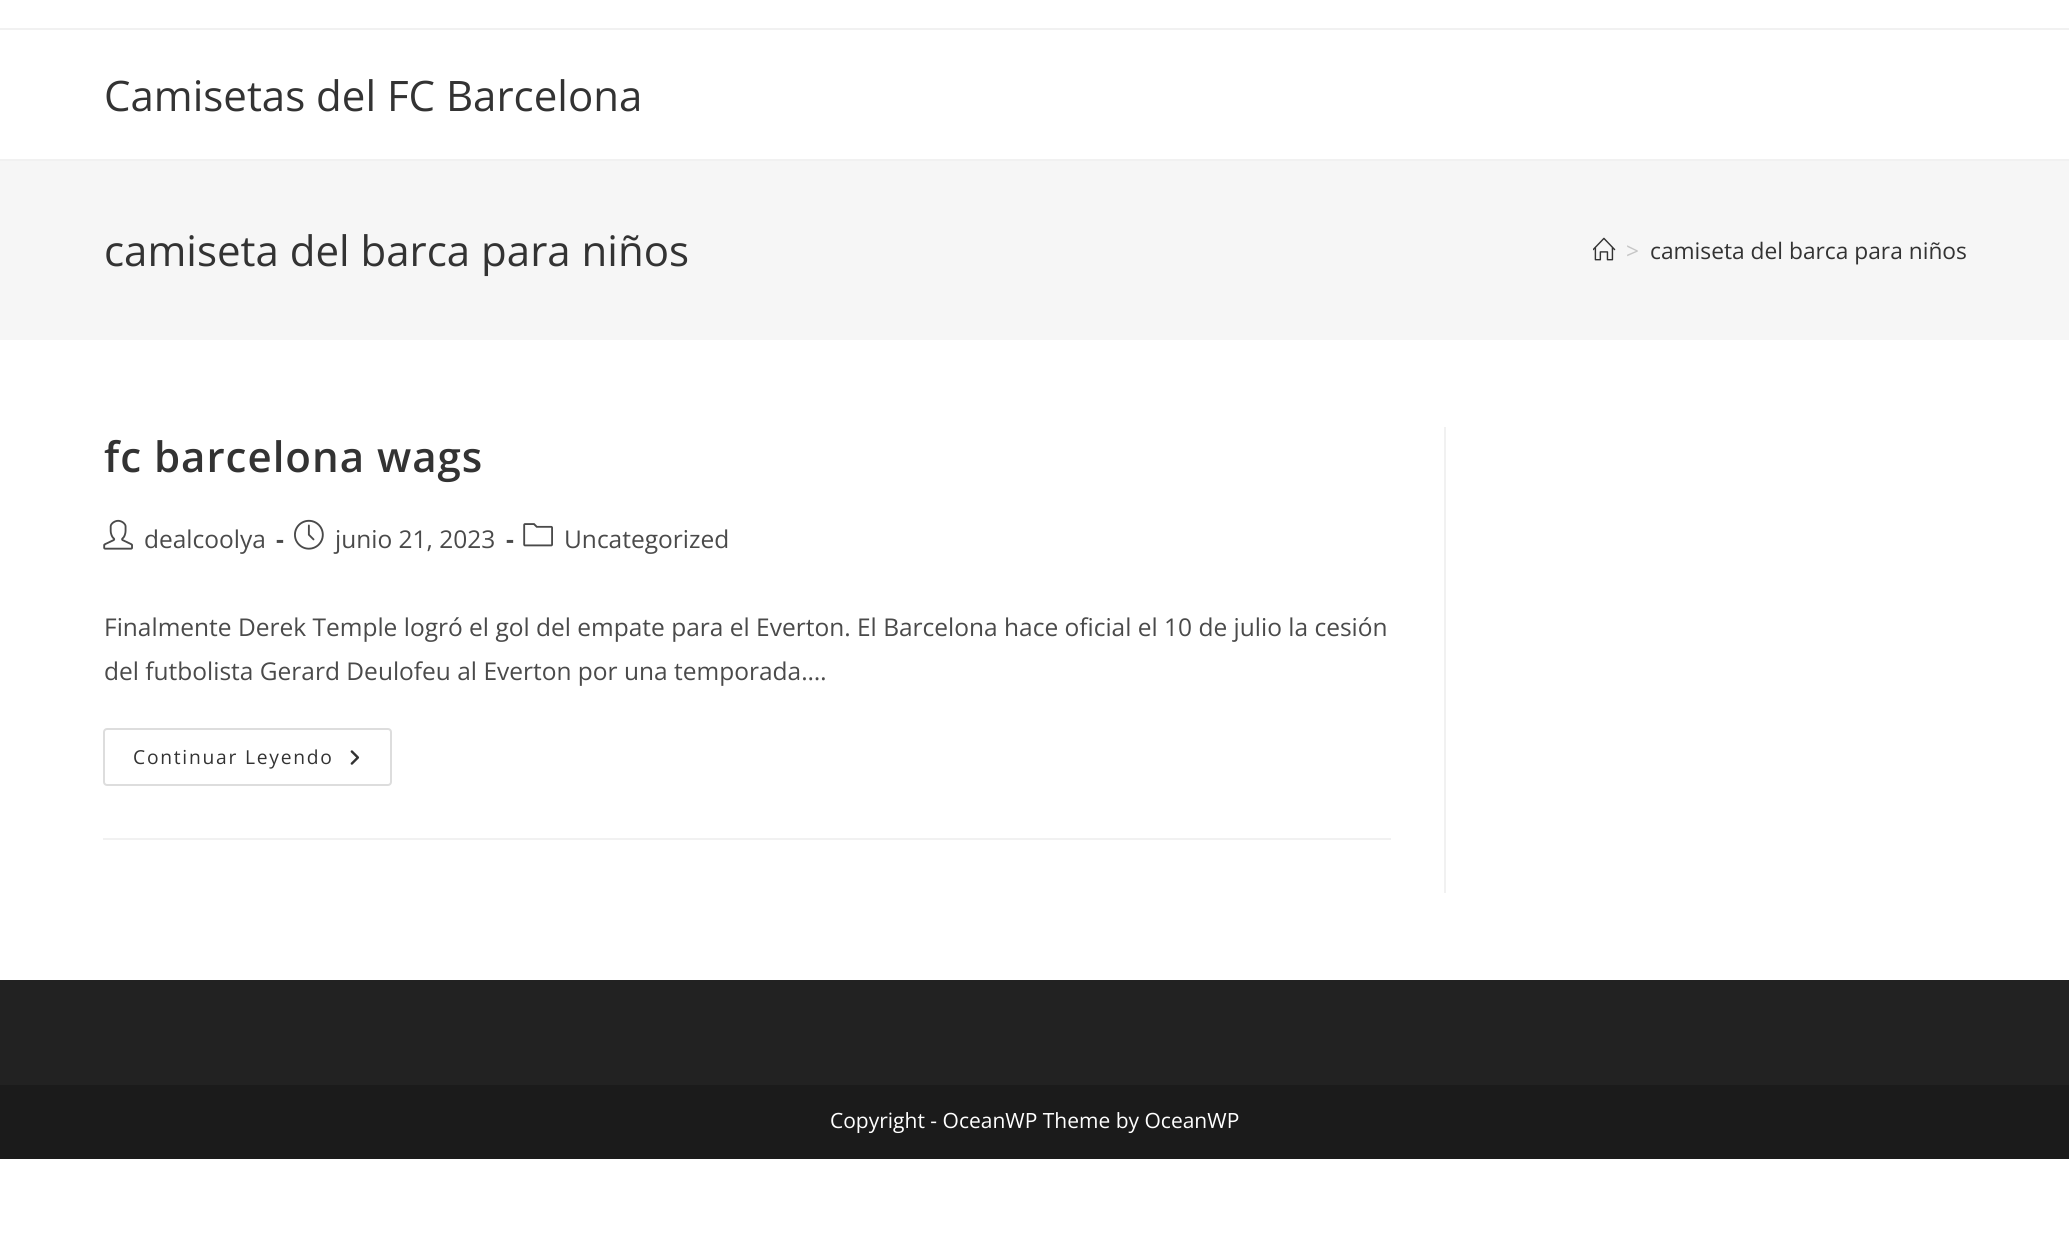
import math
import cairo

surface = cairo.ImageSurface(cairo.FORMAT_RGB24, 2069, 1260)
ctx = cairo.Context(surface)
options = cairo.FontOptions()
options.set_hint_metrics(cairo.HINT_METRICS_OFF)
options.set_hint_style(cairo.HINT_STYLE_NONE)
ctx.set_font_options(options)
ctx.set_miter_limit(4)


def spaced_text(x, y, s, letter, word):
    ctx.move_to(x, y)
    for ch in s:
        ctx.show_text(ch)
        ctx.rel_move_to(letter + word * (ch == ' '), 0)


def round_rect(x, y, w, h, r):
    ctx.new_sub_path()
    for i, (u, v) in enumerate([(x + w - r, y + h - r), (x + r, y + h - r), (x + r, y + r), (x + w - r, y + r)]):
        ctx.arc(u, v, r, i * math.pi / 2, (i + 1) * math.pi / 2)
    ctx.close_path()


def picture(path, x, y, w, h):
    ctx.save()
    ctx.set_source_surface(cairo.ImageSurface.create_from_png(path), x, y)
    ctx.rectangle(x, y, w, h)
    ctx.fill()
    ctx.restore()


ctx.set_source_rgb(1, 1, 1)
ctx.paint()
ctx.set_source_rgb(0.945, 0.945, 0.945)
ctx.rectangle(0, 28, 2069, 2)
ctx.fill()
ctx.rectangle(0, 159, 2069, 2)
ctx.fill()
ctx.select_font_face("Open Sans")
ctx.set_font_size(42)
ctx.set_source_rgb(0.2, 0.2, 0.2)
ctx.move_to(104, 111)
ctx.show_text("Camisetas del FC Barcelona")
ctx.set_source_rgb(0.961, 0.961, 0.961)
ctx.rectangle(0, 161, 2069, 179)
ctx.fill()
ctx.set_source_rgb(0.2, 0.2, 0.2)
ctx.move_to(104, 266)
ctx.show_text("camiseta del barca para niños")
picture("img1.png", 1593, 237, 23, 24)
ctx.set_font_size(22.75)
ctx.set_source_rgb(0.776, 0.776, 0.776)
ctx.move_to(1626, 259)
ctx.show_text(">")
ctx.set_source_rgb(0.2, 0.2, 0.2)
ctx.move_to(1650, 259)
ctx.show_text("camiseta del barca para niños")
ctx.set_source_rgb(0.945, 0.945, 0.945)
ctx.rectangle(1444, 427, 2, 466)
ctx.fill()
ctx.rectangle(103, 838, 1288, 2)
ctx.fill()
ctx.select_font_face("Open Sans SemiBold")
ctx.set_font_size(42)
ctx.set_source_rgb(0.2, 0.2, 0.2)
spaced_text(104, 472, "fc barcelona wags", 1, 0)
picture("img2.png", 103, 519, 30, 31)
ctx.select_font_face("Open Sans")
ctx.set_font_size(24.5)
ctx.set_source_rgb(0.29, 0.29, 0.29)
ctx.move_to(144, 548)
ctx.show_text("dealcoolya")
ctx.select_font_face("Open Sans", cairo.FONT_SLANT_NORMAL, cairo.FONT_WEIGHT_BOLD)
ctx.move_to(276, 548)
ctx.show_text("-")
picture("img3.png", 294, 519, 30, 31)
ctx.select_font_face("Open Sans")
ctx.move_to(335, 548)
ctx.show_text("junio 21, 2023")
ctx.select_font_face("Open Sans", cairo.FONT_SLANT_NORMAL, cairo.FONT_WEIGHT_BOLD)
ctx.move_to(506, 548)
ctx.show_text("-")
picture("img4.png", 523, 523, 30, 24)
ctx.select_font_face("Open Sans")
ctx.move_to(564, 548)
ctx.show_text("Uncategorized")
ctx.move_to(104, 636)
ctx.show_text("Finalmente Derek Temple logró el gol del empate para el Everton. El Barcelona hace oficial el 10 de julio la cesión")
ctx.move_to(104, 680)
ctx.show_text("del futbolista Gerard Deulofeu al Everton por una temporada.…")
round_rect(104, 729, 287, 56, 3)
ctx.set_source_rgb(0.867, 0.867, 0.867)
ctx.stroke()
ctx.set_font_size(19.25)
ctx.set_source_rgb(0.2, 0.2, 0.2)
spaced_text(133, 764, "Continuar Leyendo", 1.75, 0)
picture("img5.png", 350, 750, 10, 15)
ctx.set_source_rgb(0.133, 0.133, 0.133)
ctx.rectangle(0, 980, 2069, 105)
ctx.fill()
ctx.set_source_rgb(0.106, 0.106, 0.106)
ctx.rectangle(0, 1085, 2069, 74)
ctx.fill()
ctx.set_font_size(21)
ctx.set_source_rgb(1, 1, 1)
ctx.move_to(830, 1128)
ctx.show_text("Copyright - OceanWP Theme by OceanWP")
surface.write_to_png("page.png")
